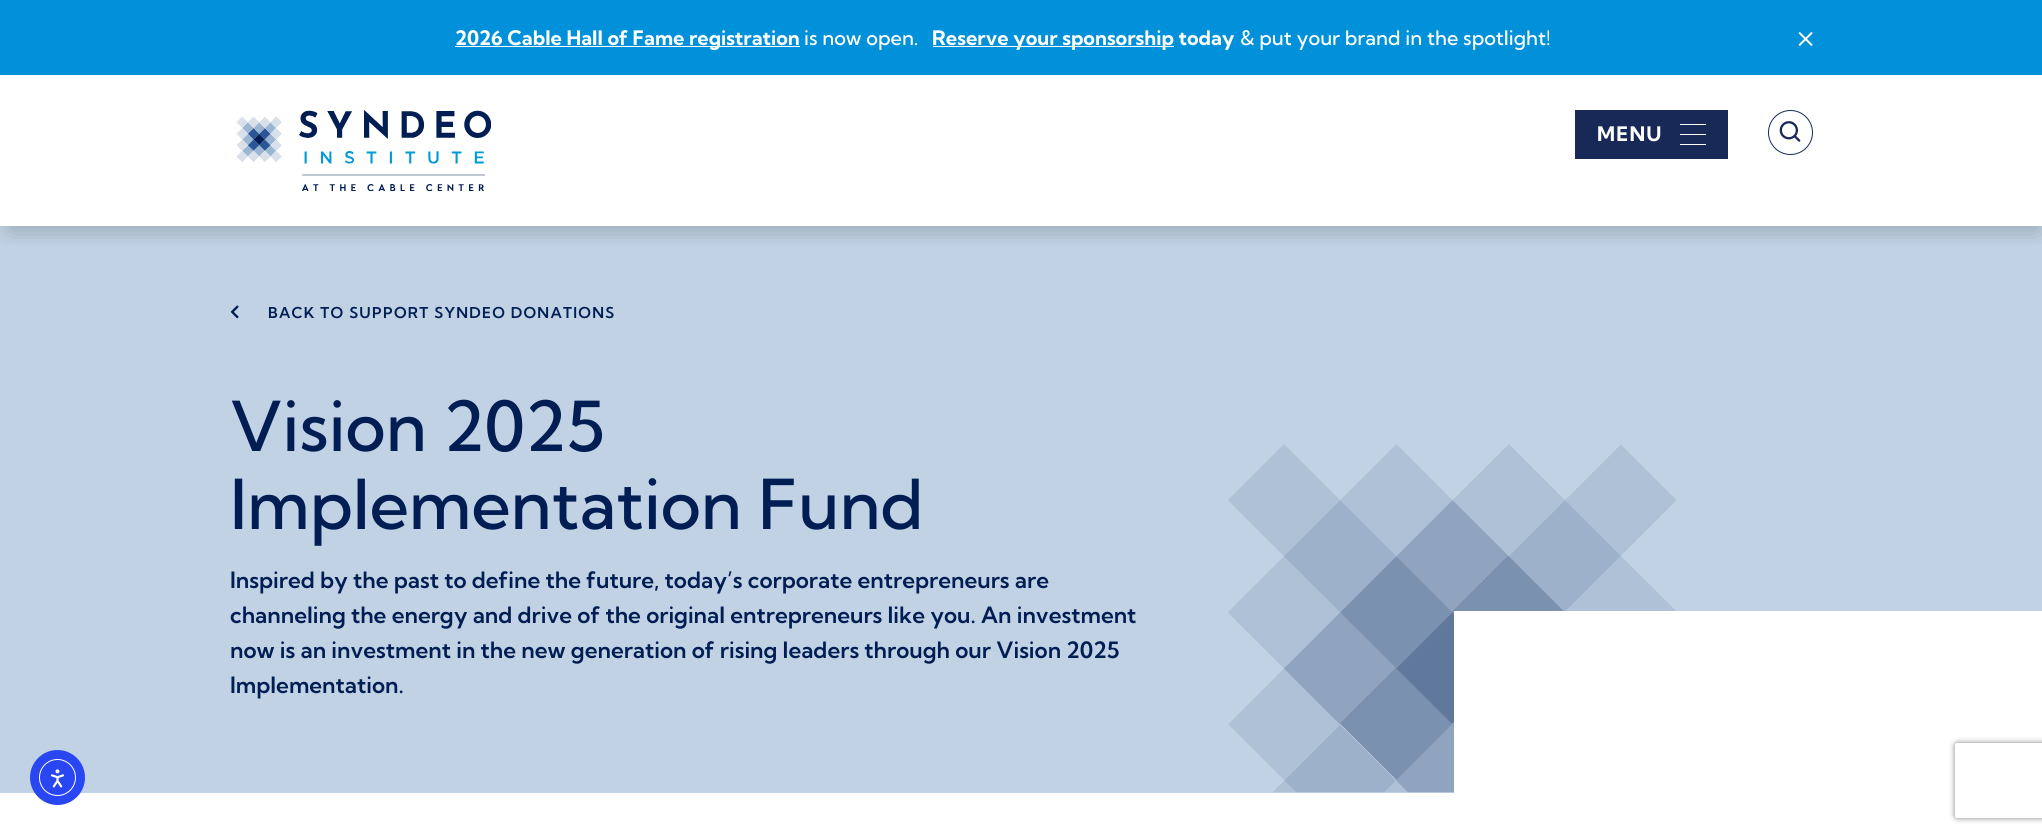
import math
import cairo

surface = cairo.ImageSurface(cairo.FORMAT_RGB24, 2042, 835)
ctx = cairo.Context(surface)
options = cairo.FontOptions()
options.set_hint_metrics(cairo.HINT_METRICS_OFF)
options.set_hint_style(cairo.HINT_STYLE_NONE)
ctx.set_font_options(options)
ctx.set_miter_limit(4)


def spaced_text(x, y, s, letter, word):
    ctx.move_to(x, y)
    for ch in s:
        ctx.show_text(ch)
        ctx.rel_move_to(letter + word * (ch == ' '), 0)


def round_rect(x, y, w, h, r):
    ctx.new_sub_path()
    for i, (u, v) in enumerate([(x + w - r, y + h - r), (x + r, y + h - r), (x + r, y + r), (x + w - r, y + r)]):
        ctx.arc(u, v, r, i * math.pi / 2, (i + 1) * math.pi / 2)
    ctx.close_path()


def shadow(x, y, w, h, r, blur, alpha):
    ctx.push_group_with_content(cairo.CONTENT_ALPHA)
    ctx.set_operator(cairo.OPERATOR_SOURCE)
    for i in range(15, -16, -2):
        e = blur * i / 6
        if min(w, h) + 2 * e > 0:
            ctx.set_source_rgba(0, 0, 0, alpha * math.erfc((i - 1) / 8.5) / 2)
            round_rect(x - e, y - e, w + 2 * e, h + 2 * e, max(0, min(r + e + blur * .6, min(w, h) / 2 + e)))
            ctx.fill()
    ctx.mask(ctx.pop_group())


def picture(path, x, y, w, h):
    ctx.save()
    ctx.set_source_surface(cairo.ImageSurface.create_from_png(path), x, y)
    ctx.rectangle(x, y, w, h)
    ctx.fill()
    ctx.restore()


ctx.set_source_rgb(1, 1, 1)
ctx.paint()
ctx.set_source_rgb(0.757, 0.824, 0.894)
ctx.rectangle(0, 226, 2042, 567)
ctx.fill()
ctx.save()
ctx.rectangle(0, 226, 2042, 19)
ctx.clip()
ctx.set_source_rgb(0, 0, 0)
shadow(10, 19, 2028, 211, 0, 11, 0.22)
ctx.restore()
ctx.set_source_rgb(0, 0.569, 0.855)
ctx.rectangle(0, 0, 2042, 75)
ctx.fill()
ctx.set_source_rgb(1, 1, 1)
ctx.rectangle(455, 46, 345, 1)
ctx.fill()
ctx.select_font_face("Kumbh Sans", cairo.FONT_SLANT_NORMAL, cairo.FONT_WEIGHT_BOLD)
ctx.set_font_size(20)
ctx.move_to(455, 45)
ctx.show_text("2026 Cable Hall of Fame registration")
ctx.select_font_face("Kumbh Sans Medium")
ctx.move_to(804, 45)
ctx.show_text("is now open.")
ctx.rectangle(933, 46, 241, 1)
ctx.fill()
ctx.select_font_face("Kumbh Sans", cairo.FONT_SLANT_NORMAL, cairo.FONT_WEIGHT_BOLD)
ctx.move_to(932, 45)
ctx.show_text("Reserve your sponsorship today")
ctx.select_font_face("Kumbh Sans Medium")
ctx.move_to(1240, 45)
ctx.show_text("& put your brand in the spotlight!")
picture("img1.png", 1798, 32, 15, 14)
picture("img2.png", 236, 110, 255, 81)
ctx.set_source_rgb(0.098, 0.161, 0.341)
ctx.rectangle(1575, 110, 153, 49)
ctx.fill()
ctx.select_font_face("Kumbh Sans", cairo.FONT_SLANT_NORMAL, cairo.FONT_WEIGHT_BOLD)
ctx.set_source_rgb(1, 1, 1)
spaced_text(1597, 141, "MENU", 1.25, 0)
ctx.rectangle(1680, 124, 26, 1)
ctx.fill()
ctx.rectangle(1680, 134, 26, 1)
ctx.fill()
ctx.rectangle(1680, 144, 26, 1)
ctx.fill()
ctx.arc(1790.5, 132.5, 22, 0, 2 * math.pi)
ctx.set_source_rgb(0.098, 0.161, 0.341)
ctx.set_line_width(1)
ctx.stroke()
picture("img3.png", 1779, 121, 22, 21)
picture("img4.png", 230, 305, 9, 14)
ctx.select_font_face("Kumbh Sans SemiBold")
ctx.set_font_size(15)
ctx.set_source_rgb(0, 0.118, 0.325)
spaced_text(268, 318, "BACK TO SUPPORT SYNDEO DONATIONS", 1.25, 0)
ctx.select_font_face("Kumbh Sans Medium")
ctx.set_font_size(68.75)
ctx.move_to(230, 451)
ctx.show_text("Vision 2025")
ctx.move_to(230, 529)
ctx.show_text("Implementation Fund")
ctx.select_font_face("Kumbh Sans SemiBold")
ctx.set_font_size(22.5)
ctx.move_to(230, 588)
ctx.show_text("Inspired by the past to define the future, today’s corporate entrepreneurs are")
ctx.move_to(230, 623)
ctx.show_text("channeling the energy and drive of the original entrepreneurs like you. An investment")
ctx.move_to(230, 658)
ctx.show_text("now is an investment in the new generation of rising leaders through our Vision 2025")
ctx.move_to(230, 693)
ctx.show_text("Implementation.")
picture("img5.png", 1228, 444, 448, 349)
ctx.set_source_rgb(1, 1, 1)
ctx.rectangle(1454, 611, 588, 182)
ctx.fill()
ctx.set_source_rgb(0.157, 0.278, 0.953)
ctx.arc(57.5, 777.5, 27.5, 0, 2 * math.pi)
ctx.fill()
ctx.arc(57.5, 777.5, 18, 0, 2 * math.pi)
ctx.set_source_rgb(1, 1, 1)
ctx.stroke()
picture("img6.png", 50, 769, 14, 19)
ctx.save()
ctx.set_fill_rule(cairo.FILL_RULE_EVEN_ODD)
ctx.new_path()
ctx.move_to(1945, 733)
ctx.line_to(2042, 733)
ctx.line_to(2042, 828)
ctx.line_to(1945, 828)
ctx.close_path()
ctx.move_to(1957.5, 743)
ctx.line_to(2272.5, 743)
ctx.curve_to(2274, 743, 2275, 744, 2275, 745.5)
ctx.line_to(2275, 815.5)
ctx.curve_to(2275, 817, 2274, 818, 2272.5, 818)
ctx.line_to(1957.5, 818)
ctx.curve_to(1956, 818, 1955, 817, 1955, 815.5)
ctx.line_to(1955, 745.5)
ctx.curve_to(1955, 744, 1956, 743, 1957.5, 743)
ctx.close_path()
ctx.clip()
ctx.set_source_rgb(0.502, 0.502, 0.502)
shadow(1955, 743, 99, 75, 2.5, 3, 1)
ctx.restore()
surface.write_to_png("page.png")
